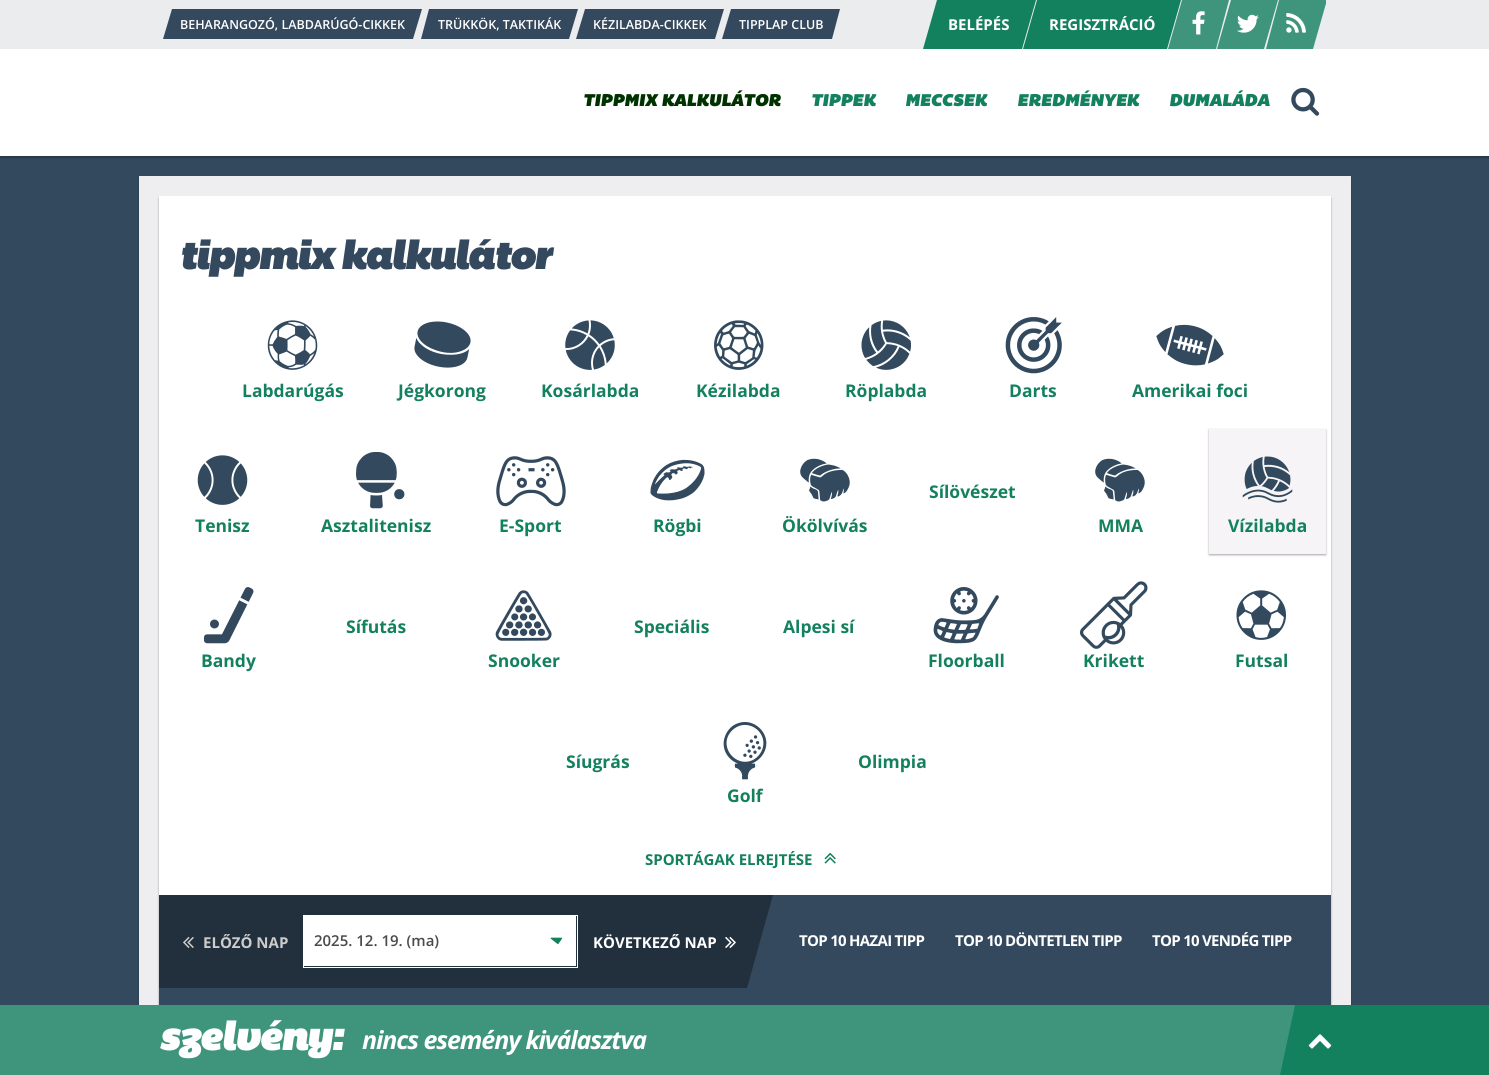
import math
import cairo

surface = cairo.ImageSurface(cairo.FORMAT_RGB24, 1489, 1075)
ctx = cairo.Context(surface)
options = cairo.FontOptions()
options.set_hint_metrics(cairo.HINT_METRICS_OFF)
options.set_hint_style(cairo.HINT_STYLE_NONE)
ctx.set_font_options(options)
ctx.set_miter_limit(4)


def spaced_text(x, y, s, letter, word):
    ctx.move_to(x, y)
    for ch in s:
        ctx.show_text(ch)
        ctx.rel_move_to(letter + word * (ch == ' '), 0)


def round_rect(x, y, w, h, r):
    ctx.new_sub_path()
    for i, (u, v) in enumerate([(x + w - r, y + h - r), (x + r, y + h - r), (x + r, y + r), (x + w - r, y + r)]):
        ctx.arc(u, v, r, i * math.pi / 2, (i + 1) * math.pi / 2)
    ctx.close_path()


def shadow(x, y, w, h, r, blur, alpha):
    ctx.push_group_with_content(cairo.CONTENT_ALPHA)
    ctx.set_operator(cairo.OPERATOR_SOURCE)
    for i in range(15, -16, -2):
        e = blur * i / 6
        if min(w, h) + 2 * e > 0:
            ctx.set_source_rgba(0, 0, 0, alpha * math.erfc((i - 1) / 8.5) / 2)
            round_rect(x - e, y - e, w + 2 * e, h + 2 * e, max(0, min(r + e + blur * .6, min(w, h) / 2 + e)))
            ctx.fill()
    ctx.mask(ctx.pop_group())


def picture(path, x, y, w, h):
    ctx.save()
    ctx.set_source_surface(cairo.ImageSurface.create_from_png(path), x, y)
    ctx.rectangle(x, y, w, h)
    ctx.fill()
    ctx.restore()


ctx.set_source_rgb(0.2, 0.286, 0.369)
ctx.paint()
ctx.set_source_rgb(0, 0, 0)
shadow(0, 1, 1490, 157, 0, 1, 0.25)
ctx.set_source_rgb(1, 1, 1)
ctx.rectangle(0, 49, 1489, 107)
ctx.fill()
ctx.set_source_rgb(0.918, 0.925, 0.933)
ctx.rectangle(0, 0, 1489, 49)
ctx.fill()
ctx.set_source_rgb(0.204, 0.286, 0.369)
ctx.new_path()
ctx.move_to(172, 9)
ctx.line_to(422, 9)
ctx.line_to(413, 39)
ctx.line_to(163, 39)
ctx.close_path()
ctx.fill()
ctx.select_font_face("Open Sans SemiBold")
ctx.set_font_size(12.5)
ctx.set_source_rgb(1, 1, 1)
ctx.move_to(180, 29)
ctx.show_text("BEHARANGOZÓ, LABDARÚGÓ-CIKKEK")
ctx.set_source_rgb(0.204, 0.286, 0.369)
ctx.new_path()
ctx.move_to(429, 9)
ctx.line_to(578, 9)
ctx.line_to(569, 39)
ctx.line_to(421, 39)
ctx.close_path()
ctx.fill()
ctx.set_source_rgb(1, 1, 1)
ctx.move_to(438, 29)
ctx.show_text("TRÜKKÖK, TAKTIKÁK")
ctx.set_source_rgb(0.204, 0.286, 0.369)
ctx.new_path()
ctx.move_to(585, 9)
ctx.line_to(724, 9)
ctx.line_to(715, 39)
ctx.line_to(576, 39)
ctx.close_path()
ctx.fill()
ctx.set_source_rgb(1, 1, 1)
ctx.move_to(593, 29)
ctx.show_text("KÉZILABDA-CIKKEK")
ctx.set_source_rgb(0.204, 0.286, 0.369)
ctx.new_path()
ctx.move_to(731, 9)
ctx.line_to(840, 9)
ctx.line_to(832, 39)
ctx.line_to(722, 39)
ctx.close_path()
ctx.fill()
ctx.set_source_rgb(1, 1, 1)
ctx.move_to(739, 29)
ctx.show_text("TIPPLAP CLUB")
ctx.set_source_rgb(0.078, 0.502, 0.369)
ctx.new_path()
ctx.move_to(937, 0)
ctx.line_to(1036, 0)
ctx.line_to(1022, 49)
ctx.line_to(923, 49)
ctx.close_path()
ctx.fill()
ctx.select_font_face("Open Sans", cairo.FONT_SLANT_NORMAL, cairo.FONT_WEIGHT_BOLD)
ctx.set_font_size(15)
ctx.set_source_rgb(1, 1, 1)
ctx.move_to(948, 30)
ctx.show_text("BELÉPÉS")
ctx.set_source_rgb(0.078, 0.502, 0.369)
ctx.new_path()
ctx.move_to(1037, 0)
ctx.line_to(1181, 0)
ctx.line_to(1167, 49)
ctx.line_to(1023, 49)
ctx.close_path()
ctx.fill()
ctx.set_source_rgb(1, 1, 1)
ctx.move_to(1049, 30)
ctx.show_text("REGISZTRÁCIÓ")
ctx.set_source_rgb(0.247, 0.584, 0.482)
ctx.new_path()
ctx.move_to(1182, 0)
ctx.line_to(1229, 0)
ctx.line_to(1216, 49)
ctx.line_to(1168, 49)
ctx.close_path()
ctx.fill()
picture("img1.png", 1192, 11, 13, 24)
ctx.new_path()
ctx.move_to(1231, 0)
ctx.line_to(1278, 0)
ctx.line_to(1264, 49)
ctx.line_to(1217, 49)
ctx.close_path()
ctx.fill()
picture("img2.png", 1237, 14, 22, 19)
ctx.save()
ctx.rectangle(1168, 0, 158, 49)
ctx.clip()
ctx.new_path()
ctx.move_to(1279, 0)
ctx.line_to(1327, 0)
ctx.line_to(1313, 49)
ctx.line_to(1266, 49)
ctx.close_path()
ctx.fill()
ctx.restore()
picture("img3.png", 1286, 13, 20, 20)
ctx.select_font_face("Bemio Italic")
ctx.set_font_size(17.5)
ctx.set_source_rgb(0, 0.196, 0)
ctx.move_to(583, 106)
ctx.show_text("TIPPMIX KALKULÁTOR")
ctx.set_source_rgb(0.078, 0.502, 0.369)
ctx.move_to(811, 106)
ctx.show_text("TIPPEK")
ctx.move_to(905, 106)
ctx.show_text("MECCSEK")
ctx.move_to(1017, 106)
ctx.show_text("EREDMÉNYEK")
ctx.move_to(1169, 106)
ctx.show_text("DUMALÁDA")
picture("img4.png", 1291, 87, 29, 29)
ctx.set_source_rgb(0, 0, 0)
shadow(139, 178, 1212, 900, 0, 1, 0.25)
ctx.set_source_rgb(0.933, 0.933, 0.941)
ctx.rectangle(139, 176, 1212, 829)
ctx.fill()
ctx.set_source_rgb(0, 0, 0)
shadow(159, 198, 1172, 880, 0, 1, 0.35)
ctx.set_source_rgb(1, 1, 1)
ctx.rectangle(159, 196, 1172, 699)
ctx.fill()
ctx.set_font_size(40)
ctx.set_source_rgb(0.204, 0.286, 0.369)
spaced_text(179, 269, "tippmix kalkulátor", -1.75, 0)
picture("img5.png", 267, 320, 51, 50)
ctx.select_font_face("Open Sans", cairo.FONT_SLANT_NORMAL, cairo.FONT_WEIGHT_BOLD)
ctx.set_font_size(17.5)
ctx.set_source_rgb(0.078, 0.502, 0.369)
ctx.move_to(242, 397)
ctx.show_text("Labdarúgás")
picture("img6.png", 414, 321, 57, 47)
ctx.move_to(398, 397)
ctx.show_text("Jégkorong")
picture("img7.png", 565, 320, 50, 50)
ctx.move_to(541, 397)
ctx.show_text("Kosárlabda")
picture("img8.png", 714, 320, 50, 50)
ctx.move_to(696, 397)
ctx.show_text("Kézilabda")
picture("img9.png", 861, 320, 50, 50)
ctx.move_to(845, 397)
ctx.show_text("Röplabda")
picture("img10.png", 1005, 317, 57, 57)
ctx.move_to(1009, 397)
ctx.show_text("Darts")
picture("img11.png", 1156, 324, 68, 42)
ctx.move_to(1132, 397)
ctx.show_text("Amerikai foci")
ctx.move_to(929, 498)
ctx.show_text("Sílövészet")
picture("img12.png", 197, 455, 51, 50)
ctx.move_to(195, 532)
ctx.show_text("Tenisz")
picture("img13.png", 356, 452, 49, 57)
ctx.move_to(321, 532)
ctx.show_text("Asztalitenisz")
picture("img14.png", 496, 456, 70, 51)
ctx.move_to(499, 532)
ctx.show_text("E-Sport")
picture("img15.png", 650, 459, 55, 42)
ctx.move_to(653, 532)
ctx.show_text("Rögbi")
picture("img16.png", 800, 458, 50, 44)
ctx.move_to(782, 532)
ctx.show_text("Ökölvívás")
picture("img16.png", 1095, 458, 50, 44)
ctx.move_to(1098, 532)
ctx.show_text("MMA")
ctx.set_source_rgb(0, 0, 0)
shadow(1209, 430, 117, 125, 0, 1, 0.35)
ctx.set_source_rgb(0.961, 0.957, 0.961)
ctx.rectangle(1209, 429, 117, 125)
ctx.fill()
picture("img17.png", 1242, 456, 51, 47)
ctx.set_source_rgb(0.078, 0.502, 0.369)
ctx.move_to(1228, 532)
ctx.show_text("Vízilabda")
ctx.move_to(346, 633)
ctx.show_text("Sífutás")
ctx.move_to(634, 633)
ctx.show_text("Speciális")
ctx.move_to(783, 633)
ctx.show_text("Alpesi sí")
picture("img18.png", 203, 587, 51, 57)
ctx.move_to(201, 667)
ctx.show_text("Bandy")
picture("img19.png", 495, 590, 57, 51)
ctx.move_to(488, 667)
ctx.show_text("Snooker")
picture("img20.png", 933, 587, 66, 57)
ctx.move_to(928, 667)
ctx.show_text("Floorball")
picture("img21.png", 1080, 581, 68, 68)
ctx.move_to(1083, 667)
ctx.show_text("Krikett")
picture("img22.png", 1236, 590, 50, 50)
ctx.move_to(1235, 667)
ctx.show_text("Futsal")
ctx.move_to(566, 768)
ctx.show_text("Síugrás")
ctx.move_to(858, 768)
ctx.show_text("Olimpia")
picture("img23.png", 723, 722, 44, 58)
ctx.move_to(727, 802)
ctx.show_text("Golf")
ctx.set_font_size(15)
ctx.move_to(645, 865)
ctx.show_text("SPORTÁGAK ELREJTÉSE")
picture("img24.png", 824, 852, 12, 12)
ctx.set_source_rgb(0.204, 0.286, 0.369)
ctx.rectangle(747, 895, 584, 93)
ctx.fill()
ctx.save()
ctx.rectangle(159, 895, 1172, 93)
ctx.clip()
ctx.set_source_rgb(0.133, 0.184, 0.239)
ctx.new_path()
ctx.move_to(147, 895)
ctx.line_to(773, 895)
ctx.line_to(747, 988)
ctx.line_to(120, 988)
ctx.close_path()
ctx.fill()
ctx.restore()
picture("img25.png", 183, 937, 11, 11)
ctx.set_source_rgb(0.8, 0.8, 0.8)
ctx.move_to(203, 948)
ctx.show_text("ELŐZŐ NAP")
ctx.rectangle(303.5, 915.5, 274, 52)
ctx.set_source_rgb(1, 1, 1)
ctx.set_line_width(1)
ctx.stroke()
ctx.rectangle(304, 916, 272, 50)
ctx.fill()
ctx.select_font_face("Open Sans SemiBold")
ctx.set_source_rgb(0.29, 0.29, 0.29)
ctx.move_to(314, 946)
ctx.show_text("2025. 12. 19. (ma)")
picture("img26.png", 550, 937, 12, 7)
ctx.select_font_face("Open Sans", cairo.FONT_SLANT_NORMAL, cairo.FONT_WEIGHT_BOLD)
ctx.set_source_rgb(1, 1, 1)
ctx.move_to(593, 948)
ctx.show_text("KÖVETKEZŐ NAP")
picture("img27.png", 725, 936, 11, 12)
spaced_text(799, 946, "TOP 10 HAZAI TIPP", -0.7, 0)
spaced_text(955, 946, "TOP 10 DÖNTETLEN TIPP", -0.7, 0)
spaced_text(1152, 946, "TOP 10 VENDÉG TIPP", -0.7, 0)
ctx.set_source_rgb(0.2, 0.286, 0.369)
ctx.rectangle(159, 988, 1172, 17)
ctx.fill()
ctx.set_source_rgb(0.078, 0.502, 0.369)
ctx.rectangle(1295, 1005, 194, 70)
ctx.fill()
ctx.set_source_rgb(0.247, 0.584, 0.482)
ctx.rectangle(0, 1005, 1295, 70)
ctx.fill()
ctx.select_font_face("Bemio Italic")
ctx.set_font_size(40)
ctx.set_source_rgb(1, 1, 1)
spaced_text(159, 1050, "szelvény:", -1.75, 0)
ctx.select_font_face("Open Sans", cairo.FONT_SLANT_ITALIC, cairo.FONT_WEIGHT_BOLD)
ctx.set_font_size(25)
spaced_text(362, 1049, "nincs esemény kiválasztva", -1.1, 0)
ctx.set_source_rgb(0.078, 0.502, 0.369)
ctx.new_path()
ctx.move_to(1295, 1075)
ctx.line_to(1280, 1075)
ctx.line_to(1295, 1005)
ctx.close_path()
ctx.fill()
picture("img28.png", 1308, 1034, 24, 15)
surface.write_to_png("page.png")
